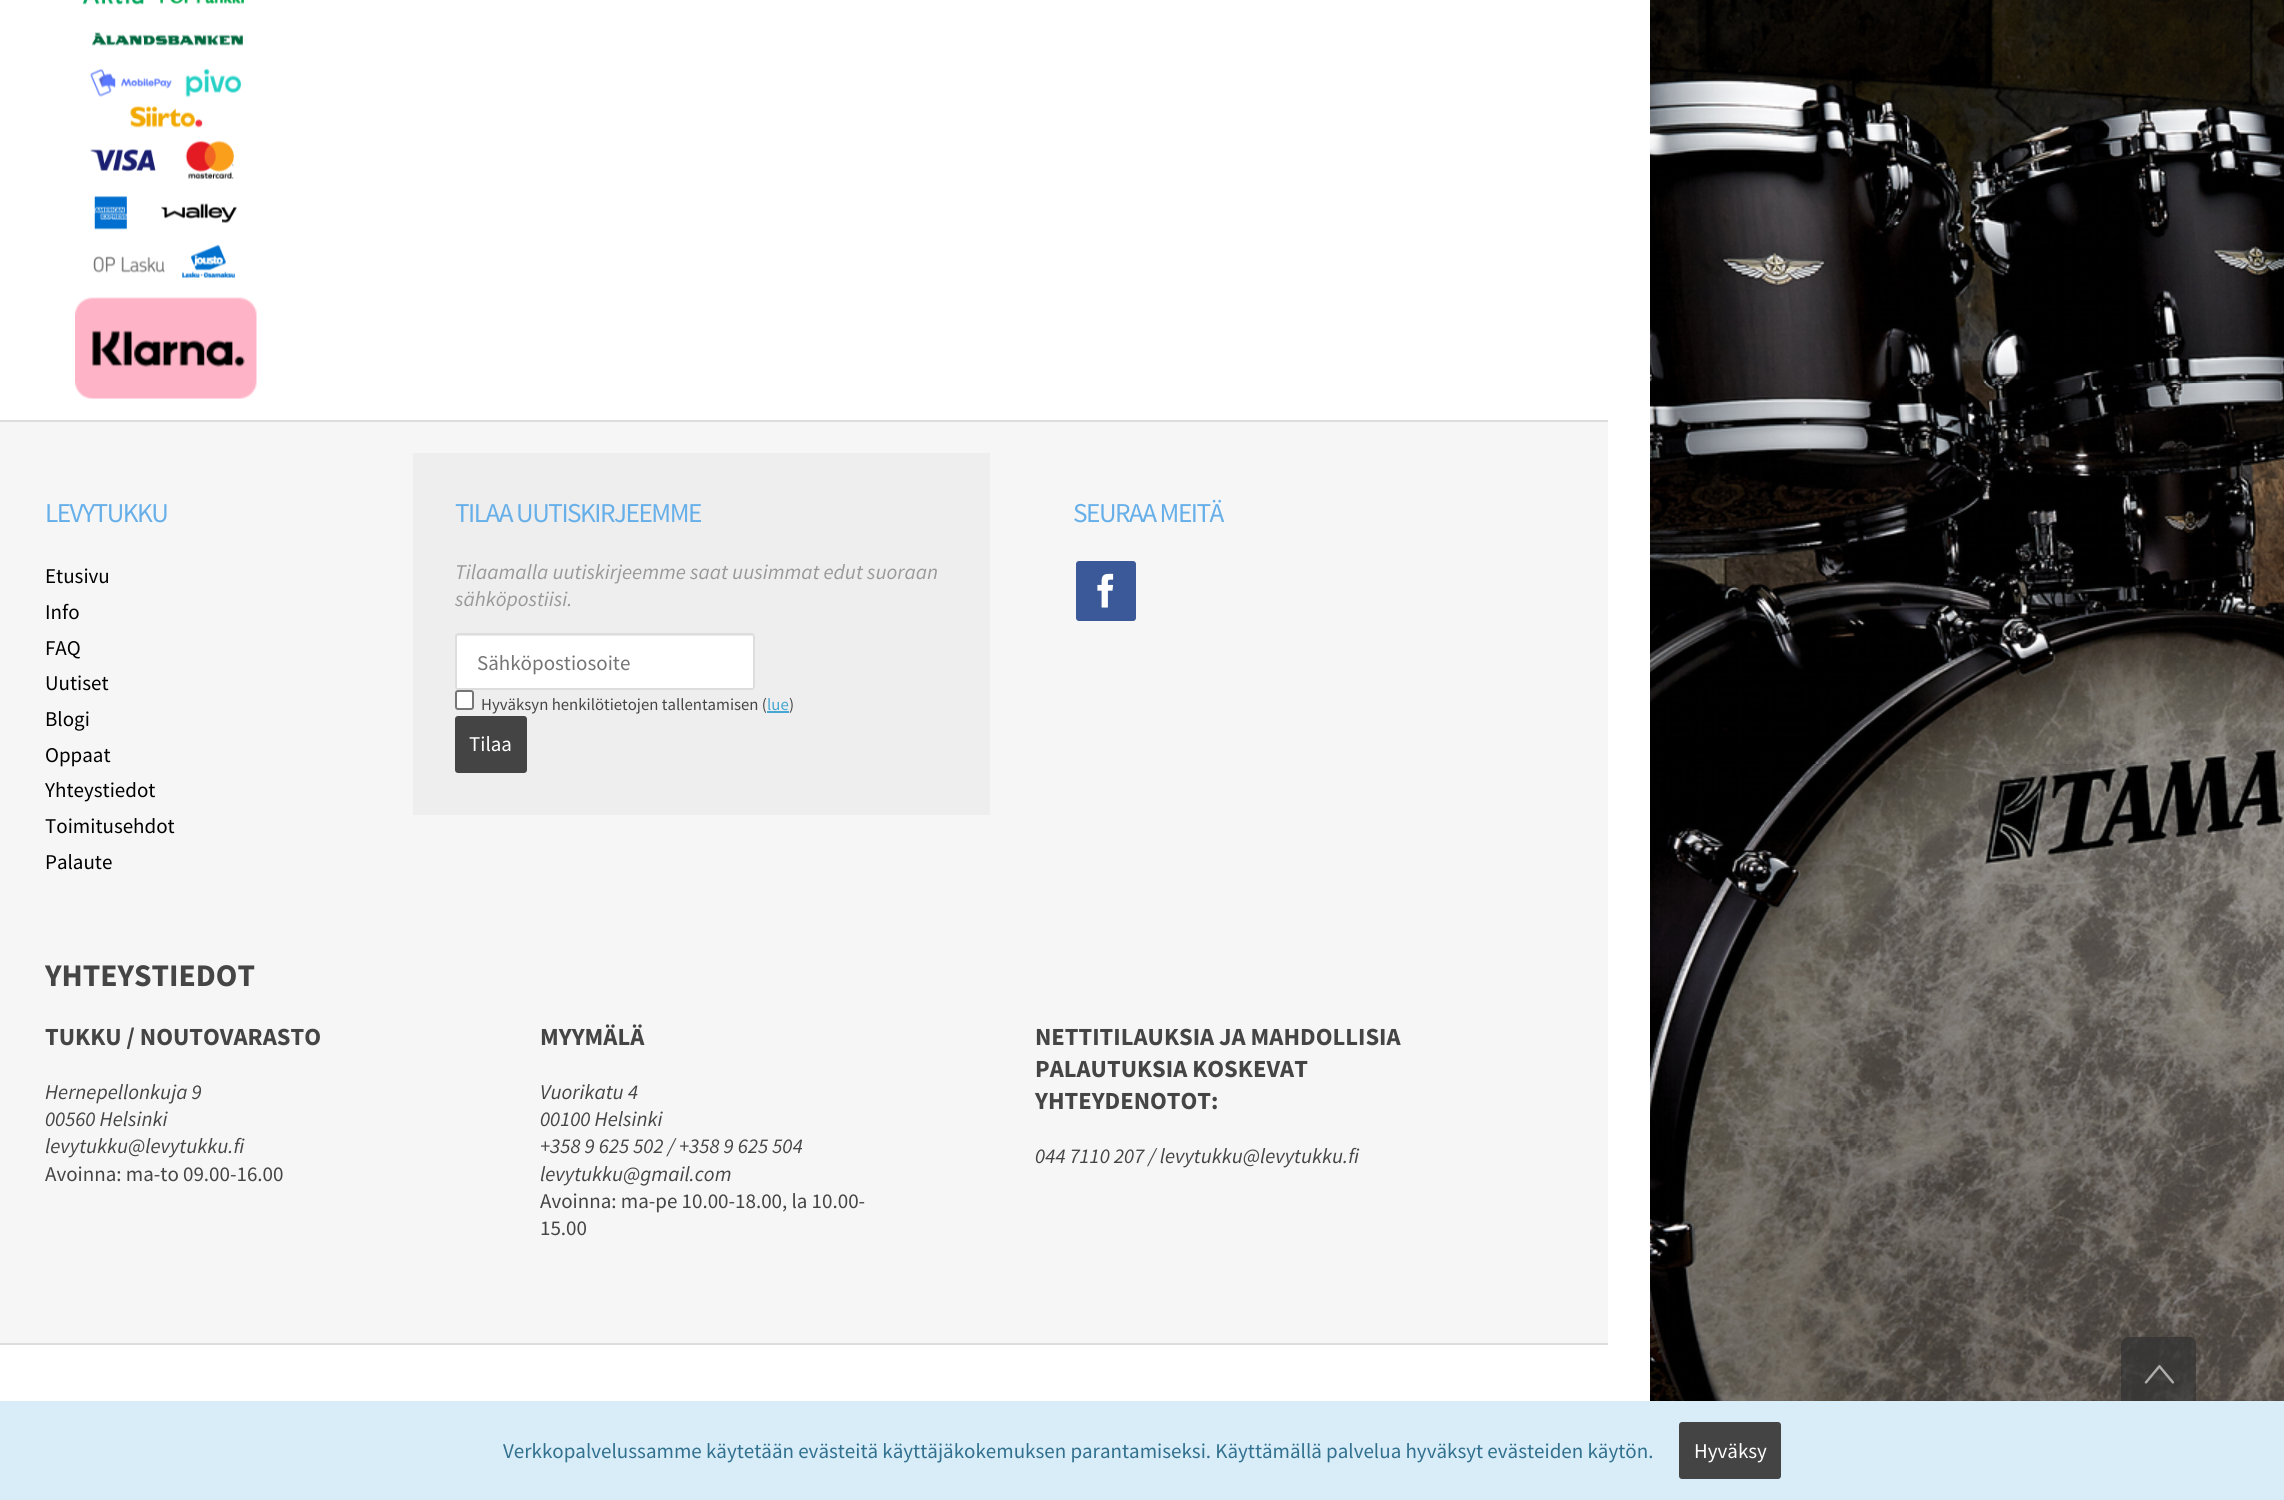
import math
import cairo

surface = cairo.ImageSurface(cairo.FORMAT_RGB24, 2284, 1500)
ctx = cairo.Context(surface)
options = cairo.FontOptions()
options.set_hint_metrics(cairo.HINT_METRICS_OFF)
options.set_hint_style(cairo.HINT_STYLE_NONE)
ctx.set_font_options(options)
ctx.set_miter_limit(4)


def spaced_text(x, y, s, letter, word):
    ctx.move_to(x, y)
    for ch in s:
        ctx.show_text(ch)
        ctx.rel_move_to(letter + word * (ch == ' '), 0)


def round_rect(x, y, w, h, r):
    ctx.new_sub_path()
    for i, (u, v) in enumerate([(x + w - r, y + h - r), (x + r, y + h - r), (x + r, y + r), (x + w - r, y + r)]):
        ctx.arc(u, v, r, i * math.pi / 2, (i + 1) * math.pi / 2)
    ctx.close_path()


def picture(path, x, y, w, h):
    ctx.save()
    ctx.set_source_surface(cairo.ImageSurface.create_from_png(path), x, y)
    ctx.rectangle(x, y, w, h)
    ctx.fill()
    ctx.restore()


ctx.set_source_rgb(1, 1, 1)
ctx.paint()
picture("img1.png", 1650, 0, 634, 1401)
picture("img2.png", 82, 0, 162, 278)
picture("img3.png", 75, 297, 182, 102)
ctx.set_source_rgb(0.961, 0.961, 0.961)
ctx.rectangle(0, 422, 1608, 921)
ctx.fill()
ctx.set_source_rgb(0.867, 0.867, 0.867)
ctx.rectangle(0, 420, 1608, 2)
ctx.fill()
ctx.rectangle(0, 1343, 1608, 2)
ctx.fill()
ctx.select_font_face("Source Sans Pro")
ctx.set_font_size(27.25)
ctx.set_source_rgb(0.4, 0.686, 0.914)
spaced_text(45, 522, "LEVYTUKKU", -1.5, 0)
ctx.set_font_size(21)
ctx.set_source_rgb(0, 0, 0)
ctx.move_to(45, 583)
ctx.show_text("Etusivu")
ctx.move_to(45, 619)
ctx.show_text("Info")
ctx.move_to(45, 655)
ctx.show_text("FAQ")
ctx.move_to(45, 690)
ctx.show_text("Uutiset")
ctx.move_to(45, 726)
ctx.show_text("Blogi")
ctx.move_to(45, 762)
ctx.show_text("Oppaat")
ctx.move_to(45, 797)
ctx.show_text("Yhteystiedot")
ctx.move_to(45, 833)
ctx.show_text("Toimitusehdot")
ctx.move_to(45, 869)
ctx.show_text("Palaute")
ctx.set_source_rgb(0.933, 0.933, 0.933)
ctx.rectangle(413, 453, 577, 362)
ctx.fill()
ctx.set_font_size(27.25)
ctx.set_source_rgb(0.4, 0.686, 0.914)
spaced_text(455, 522, "TILAA UUTISKIRJEEMME", -1.5, 0)
ctx.select_font_face("Source Sans Pro", cairo.FONT_SLANT_ITALIC)
ctx.set_font_size(21)
ctx.set_source_rgb(0.6, 0.6, 0.6)
ctx.move_to(455, 579)
ctx.show_text("Tilaamalla uutiskirjeemme saat uusimmat edut suoraan")
ctx.move_to(455, 606)
ctx.show_text("sähköpostiisi.")
ctx.set_source_rgb(1, 1, 1)
round_rect(455, 633, 300, 57, 3)
ctx.fill()
ctx.set_source_rgb(0.925, 0.925, 0.925)
ctx.new_path()
ctx.move_to(458, 636)
ctx.line_to(752, 636)
ctx.line_to(753, 638)
ctx.curve_to(753, 637, 753, 635, 752, 635)
ctx.line_to(458, 635)
ctx.line_to(456, 635)
ctx.line_to(456, 638)
ctx.curve_to(456, 637, 457, 636, 458, 636)
ctx.close_path()
ctx.fill()
round_rect(456, 634, 298, 55, 2)
ctx.set_source_rgb(0.867, 0.867, 0.867)
ctx.stroke()
ctx.select_font_face("Source Sans Pro")
ctx.set_source_rgb(0.459, 0.459, 0.459)
ctx.move_to(477, 670)
ctx.show_text("Sähköpostiosoite")
ctx.set_source_rgb(1, 1, 1)
round_rect(456, 691, 17, 18, 2)
ctx.fill_preserve()
ctx.set_source_rgb(0.463, 0.463, 0.463)
ctx.stroke()
ctx.set_font_size(16.75)
ctx.set_source_rgb(0.271, 0.271, 0.271)
ctx.move_to(481, 710)
ctx.show_text("Hyväksyn henkilötietojen tallentamisen (")
ctx.set_source_rgb(0.278, 0.651, 0.827)
ctx.move_to(767, 710)
ctx.show_text("lue")
ctx.rectangle(767, 711, 22, 2)
ctx.fill()
ctx.set_source_rgb(0.271, 0.271, 0.271)
ctx.move_to(789, 710)
ctx.show_text(")")
ctx.set_source_rgb(0.267, 0.267, 0.267)
round_rect(455, 716, 72, 57, 3)
ctx.fill()
ctx.set_font_size(21)
ctx.set_source_rgb(1, 1, 1)
ctx.move_to(469, 751)
ctx.show_text("Tilaa")
ctx.set_font_size(27.25)
ctx.set_source_rgb(0.4, 0.686, 0.914)
spaced_text(1073, 522, "SEURAA MEITÄ", -1.5, 0)
ctx.set_source_rgb(0.231, 0.349, 0.596)
round_rect(1076, 561, 60, 60, 3)
ctx.fill()
picture("img4.png", 1097, 573, 17, 35)
ctx.select_font_face("Source Sans Pro", cairo.FONT_SLANT_NORMAL, cairo.FONT_WEIGHT_BOLD)
ctx.set_font_size(31.5)
ctx.set_source_rgb(0.271, 0.271, 0.271)
ctx.move_to(45, 986)
ctx.show_text("YHTEYSTIEDOT")
ctx.set_font_size(24.6)
ctx.move_to(45, 1045)
ctx.show_text("TUKKU / NOUTOVARASTO")
ctx.select_font_face("Source Sans Pro", cairo.FONT_SLANT_ITALIC)
ctx.set_font_size(21)
ctx.move_to(45, 1099)
ctx.show_text("Hernepellonkuja 9")
ctx.move_to(45, 1126)
ctx.show_text("00560 Helsinki")
ctx.move_to(45, 1153)
ctx.show_text("levytukku@levytukku.fi")
ctx.select_font_face("Source Sans Pro")
ctx.move_to(45, 1181)
ctx.show_text("Avoinna: ma-to 09.00-16.00")
ctx.select_font_face("Source Sans Pro", cairo.FONT_SLANT_NORMAL, cairo.FONT_WEIGHT_BOLD)
ctx.set_font_size(24.6)
ctx.move_to(540, 1045)
ctx.show_text("MYYMÄLÄ")
ctx.select_font_face("Source Sans Pro", cairo.FONT_SLANT_ITALIC)
ctx.set_font_size(21)
ctx.move_to(540, 1099)
ctx.show_text("Vuorikatu 4")
ctx.move_to(540, 1126)
ctx.show_text("00100 Helsinki")
ctx.move_to(540, 1153)
ctx.show_text("+358 9 625 502 / +358 9 625 504")
ctx.move_to(540, 1181)
ctx.show_text("levytukku@gmail.com")
ctx.select_font_face("Source Sans Pro")
ctx.move_to(540, 1208)
ctx.show_text("Avoinna: ma-pe 10.00-18.00, la 10.00-")
ctx.move_to(540, 1235)
ctx.show_text("15.00")
ctx.select_font_face("Source Sans Pro", cairo.FONT_SLANT_NORMAL, cairo.FONT_WEIGHT_BOLD)
ctx.set_font_size(24.6)
ctx.move_to(1035, 1045)
ctx.show_text("NETTITILAUKSIA JA MAHDOLLISIA")
ctx.move_to(1035, 1077)
ctx.show_text("PALAUTUKSIA KOSKEVAT")
ctx.move_to(1035, 1109)
ctx.show_text("YHTEYDENOTOT:")
ctx.select_font_face("Source Sans Pro", cairo.FONT_SLANT_ITALIC)
ctx.set_font_size(21)
ctx.move_to(1035, 1163)
ctx.show_text("044 7110 207 / levytukku@levytukku.fi")
ctx.set_source_rgba(0.2, 0.2, 0.2, 0.7)
ctx.new_path()
ctx.move_to(2189, 1412)
ctx.line_to(2129, 1412)
ctx.curve_to(2125, 1412, 2121, 1408, 2121, 1404)
ctx.line_to(2121, 1344)
ctx.curve_to(2121, 1340, 2125, 1337, 2129, 1337)
ctx.line_to(2189, 1337)
ctx.curve_to(2193, 1337, 2196, 1340, 2196, 1344)
ctx.line_to(2196, 1404)
ctx.curve_to(2196, 1408, 2193, 1412, 2189, 1412)
ctx.close_path()
ctx.fill()
picture("img5.png", 2144, 1365, 31, 19)
ctx.set_source_rgb(0.851, 0.929, 0.969)
ctx.rectangle(0, 1401, 2284, 99)
ctx.fill()
ctx.select_font_face("Source Sans Pro")
ctx.set_source_rgb(0.192, 0.439, 0.561)
ctx.move_to(503, 1458)
ctx.show_text("Verkkopalvelussamme käytetään evästeitä käyttäjäkokemuksen parantamiseksi. Käyttämällä palvelua hyväksyt evästeiden käytön.")
ctx.set_source_rgb(0.267, 0.267, 0.267)
round_rect(1679, 1422, 102, 57, 3)
ctx.fill()
ctx.set_source_rgb(1, 1, 1)
ctx.move_to(1694, 1458)
ctx.show_text("Hyväksy")
surface.write_to_png("page.png")
